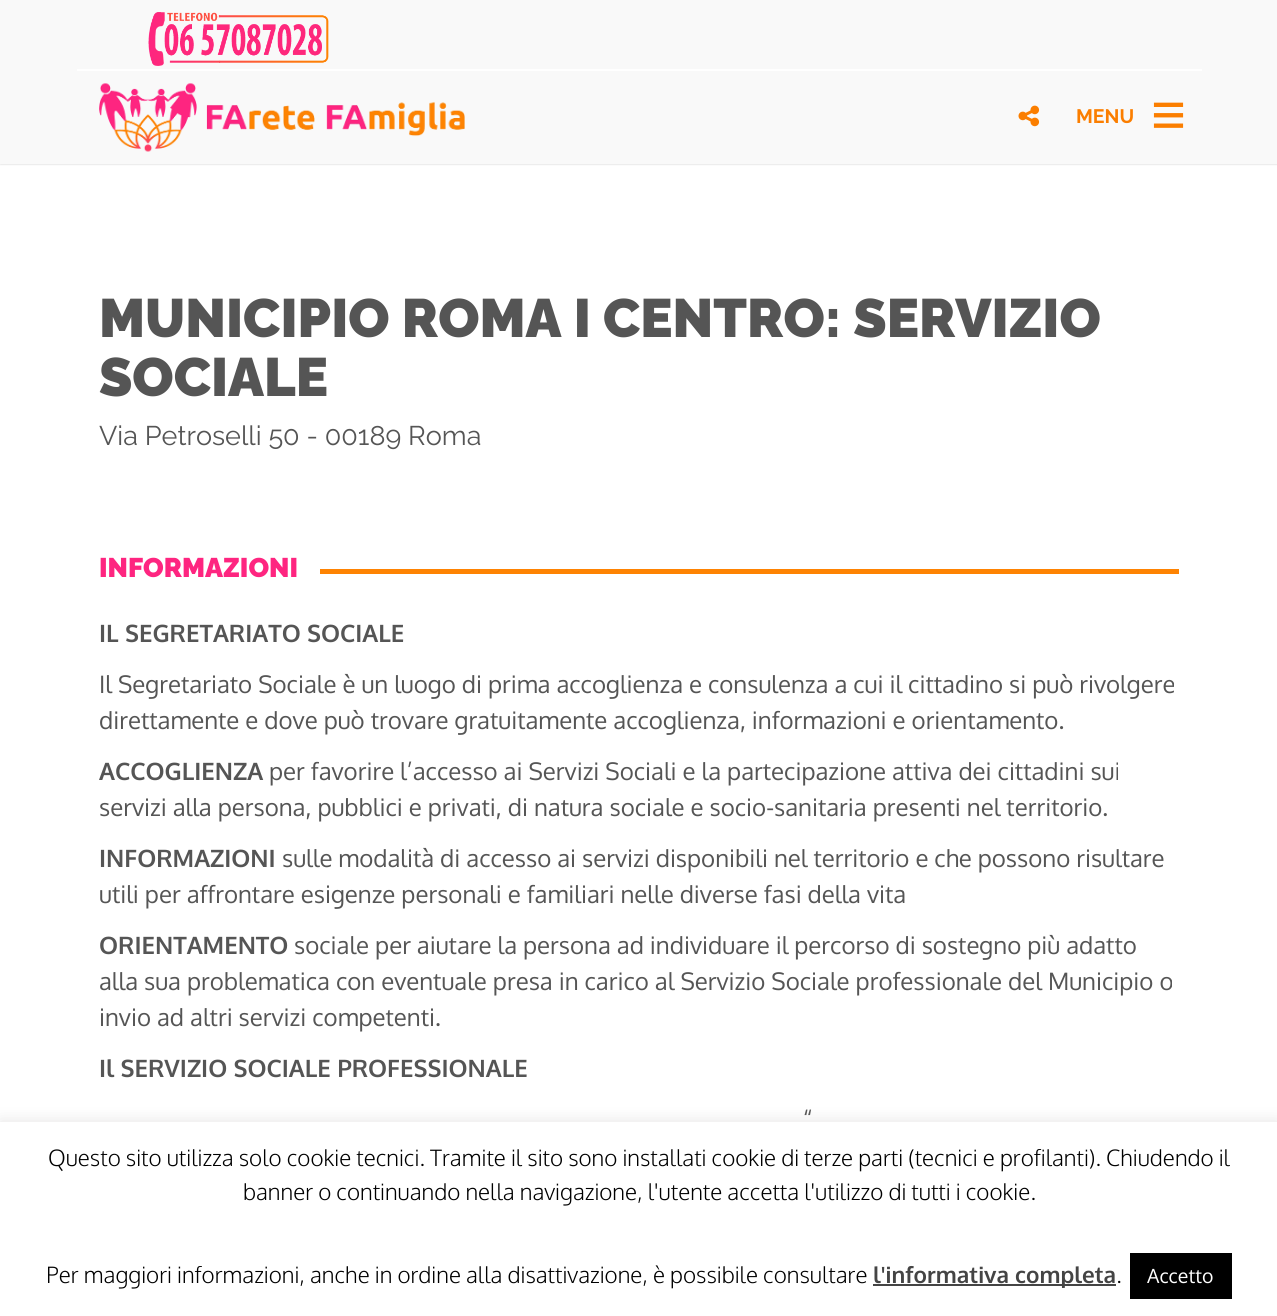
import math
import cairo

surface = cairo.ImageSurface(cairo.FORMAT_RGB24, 1277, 1316)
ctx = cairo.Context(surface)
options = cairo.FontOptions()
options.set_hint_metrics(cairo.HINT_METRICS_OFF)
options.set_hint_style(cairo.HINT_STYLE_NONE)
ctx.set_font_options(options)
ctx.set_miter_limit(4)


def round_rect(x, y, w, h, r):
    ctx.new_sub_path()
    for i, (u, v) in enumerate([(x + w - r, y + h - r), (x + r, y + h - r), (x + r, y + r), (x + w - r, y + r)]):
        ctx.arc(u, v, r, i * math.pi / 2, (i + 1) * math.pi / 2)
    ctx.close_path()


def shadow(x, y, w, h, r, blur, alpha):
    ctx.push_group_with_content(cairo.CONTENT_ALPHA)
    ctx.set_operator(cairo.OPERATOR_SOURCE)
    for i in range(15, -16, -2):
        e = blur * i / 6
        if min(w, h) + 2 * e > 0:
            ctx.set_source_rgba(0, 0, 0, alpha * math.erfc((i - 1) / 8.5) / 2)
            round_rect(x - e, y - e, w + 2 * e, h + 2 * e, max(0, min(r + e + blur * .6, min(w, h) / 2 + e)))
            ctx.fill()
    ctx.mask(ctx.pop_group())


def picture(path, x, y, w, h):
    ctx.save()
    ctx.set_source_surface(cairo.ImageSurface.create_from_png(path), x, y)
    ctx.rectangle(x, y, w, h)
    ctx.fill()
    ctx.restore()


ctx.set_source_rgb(1, 1, 1)
ctx.paint()
ctx.set_source_rgb(0, 0, 0)
shadow(0, 0, 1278, 164, 0, 1, 0.2)
ctx.set_source_rgb(0.976, 0.976, 0.976)
ctx.rectangle(0, 0, 1277, 164)
ctx.fill()
ctx.set_source_rgb(1, 1, 1)
ctx.rectangle(77, 69, 1125, 2)
ctx.fill()
picture("img1.png", 148, 12, 181, 54)
picture("img2.png", 99, 83, 366, 69)
picture("img3.png", 1018, 105, 22, 22)
ctx.select_font_face("Raleway", cairo.FONT_SLANT_NORMAL, cairo.FONT_WEIGHT_BOLD)
ctx.set_font_size(19.5)
ctx.set_source_rgb(0.984, 0.494, 0)
ctx.move_to(1076, 123)
ctx.show_text("MENU")
ctx.select_font_face("Liberation Sans", cairo.FONT_SLANT_NORMAL, cairo.FONT_WEIGHT_BOLD)
ctx.set_font_size(60)
ctx.move_to(1151, 135)
ctx.show_text("≡")
ctx.select_font_face("Raleway Black")
ctx.set_font_size(54)
ctx.set_source_rgb(0.333, 0.333, 0.333)
ctx.move_to(99, 337)
ctx.show_text("MUNICIPIO ROMA I CENTRO: SERVIZIO")
ctx.move_to(99, 396)
ctx.show_text("SOCIALE")
ctx.select_font_face("Raleway")
ctx.set_font_size(27)
ctx.move_to(99, 445)
ctx.show_text("Via Petroselli 50 - 00189 Roma")
ctx.select_font_face("Raleway Black")
ctx.set_source_rgb(0.996, 0.145, 0.502)
ctx.move_to(99, 577)
ctx.show_text("INFORMAZIONI")
ctx.set_source_rgb(0.996, 0.514, 0.008)
ctx.rectangle(320, 569, 859, 5)
ctx.fill()
ctx.select_font_face("Oxygen", cairo.FONT_SLANT_NORMAL, cairo.FONT_WEIGHT_BOLD)
ctx.set_font_size(24)
ctx.set_source_rgb(0.333, 0.333, 0.333)
ctx.move_to(99, 642)
ctx.show_text("IL SEGRETARIATO SOCIALE")
ctx.select_font_face("Oxygen")
ctx.move_to(99, 693)
ctx.show_text("Il Segretariato Sociale è un luogo di prima accoglienza e consulenza a cui il cittadino si può rivolgere")
ctx.move_to(99, 729)
ctx.show_text("direttamente e dove può trovare gratuitamente accoglienza, informazioni e orientamento.")
ctx.select_font_face("Oxygen", cairo.FONT_SLANT_NORMAL, cairo.FONT_WEIGHT_BOLD)
ctx.move_to(99, 780)
ctx.show_text("ACCOGLIENZA")
ctx.select_font_face("Oxygen")
ctx.move_to(269, 780)
ctx.show_text("per favorire l’accesso ai Servizi Sociali e la partecipazione attiva dei cittadini sui")
ctx.move_to(99, 816)
ctx.show_text("servizi alla persona, pubblici e privati, di natura sociale e socio-sanitaria presenti nel territorio.")
ctx.select_font_face("Oxygen", cairo.FONT_SLANT_NORMAL, cairo.FONT_WEIGHT_BOLD)
ctx.move_to(99, 867)
ctx.show_text("INFORMAZIONI")
ctx.select_font_face("Oxygen")
ctx.move_to(282, 867)
ctx.show_text("sulle modalità di accesso ai servizi disponibili nel territorio e che possono risultare")
ctx.move_to(99, 903)
ctx.show_text("utili per affrontare esigenze personali e familiari nelle diverse fasi della vita")
ctx.select_font_face("Oxygen", cairo.FONT_SLANT_NORMAL, cairo.FONT_WEIGHT_BOLD)
ctx.move_to(99, 954)
ctx.show_text("ORIENTAMENTO")
ctx.select_font_face("Oxygen")
ctx.move_to(294, 954)
ctx.show_text("sociale per aiutare la persona ad individuare il percorso di sostegno più adatto")
ctx.move_to(99, 990)
ctx.show_text("alla sua problematica con eventuale presa in carico al Servizio Sociale professionale del Municipio o")
ctx.move_to(99, 1026)
ctx.show_text("invio ad altri servizi competenti.")
ctx.select_font_face("Oxygen", cairo.FONT_SLANT_NORMAL, cairo.FONT_WEIGHT_BOLD)
ctx.move_to(99, 1077)
ctx.show_text("Il SERVIZIO SOCIALE PROFESSIONALE")
ctx.select_font_face("Oxygen")
ctx.move_to(803, 1128)
ctx.show_text("“")
ctx.set_source_rgb(0.675, 0.671, 0.671)
shadow(0, 1121, 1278, 195, 0, 7.5, 0.3)
ctx.set_source_rgb(1, 1, 1)
ctx.rectangle(0, 1122, 1277, 194)
ctx.fill()
ctx.select_font_face("Oxygen Light")
ctx.set_font_size(22.5)
ctx.set_source_rgb(0, 0, 0)
ctx.move_to(48, 1166)
ctx.show_text("Questo sito utilizza solo cookie tecnici. Tramite il sito sono installati cookie di terze parti (tecnici e profilanti). Chiudendo il")
ctx.move_to(243, 1200)
ctx.show_text("banner o continuando nella navigazione, l'utente accetta l'utilizzo di tutti i cookie.")
ctx.move_to(46, 1283)
ctx.show_text("Per maggiori informazioni, anche in ordine alla disattivazione, è possibile consultare")
ctx.set_source_rgb(0.267, 0.267, 0.267)
ctx.rectangle(873, 1284, 243, 2)
ctx.fill()
ctx.select_font_face("Oxygen", cairo.FONT_SLANT_NORMAL, cairo.FONT_WEIGHT_BOLD)
ctx.move_to(873, 1283)
ctx.show_text("l'informativa completa")
ctx.select_font_face("Oxygen Light")
ctx.set_source_rgb(0, 0, 0)
ctx.move_to(1116, 1283)
ctx.show_text(".")
ctx.rectangle(1130, 1253, 102, 46)
ctx.fill()
ctx.select_font_face("Oxygen")
ctx.set_font_size(19.5)
ctx.set_source_rgb(1, 1, 1)
ctx.move_to(1147, 1283)
ctx.show_text("Accetto")
surface.write_to_png("page.png")
